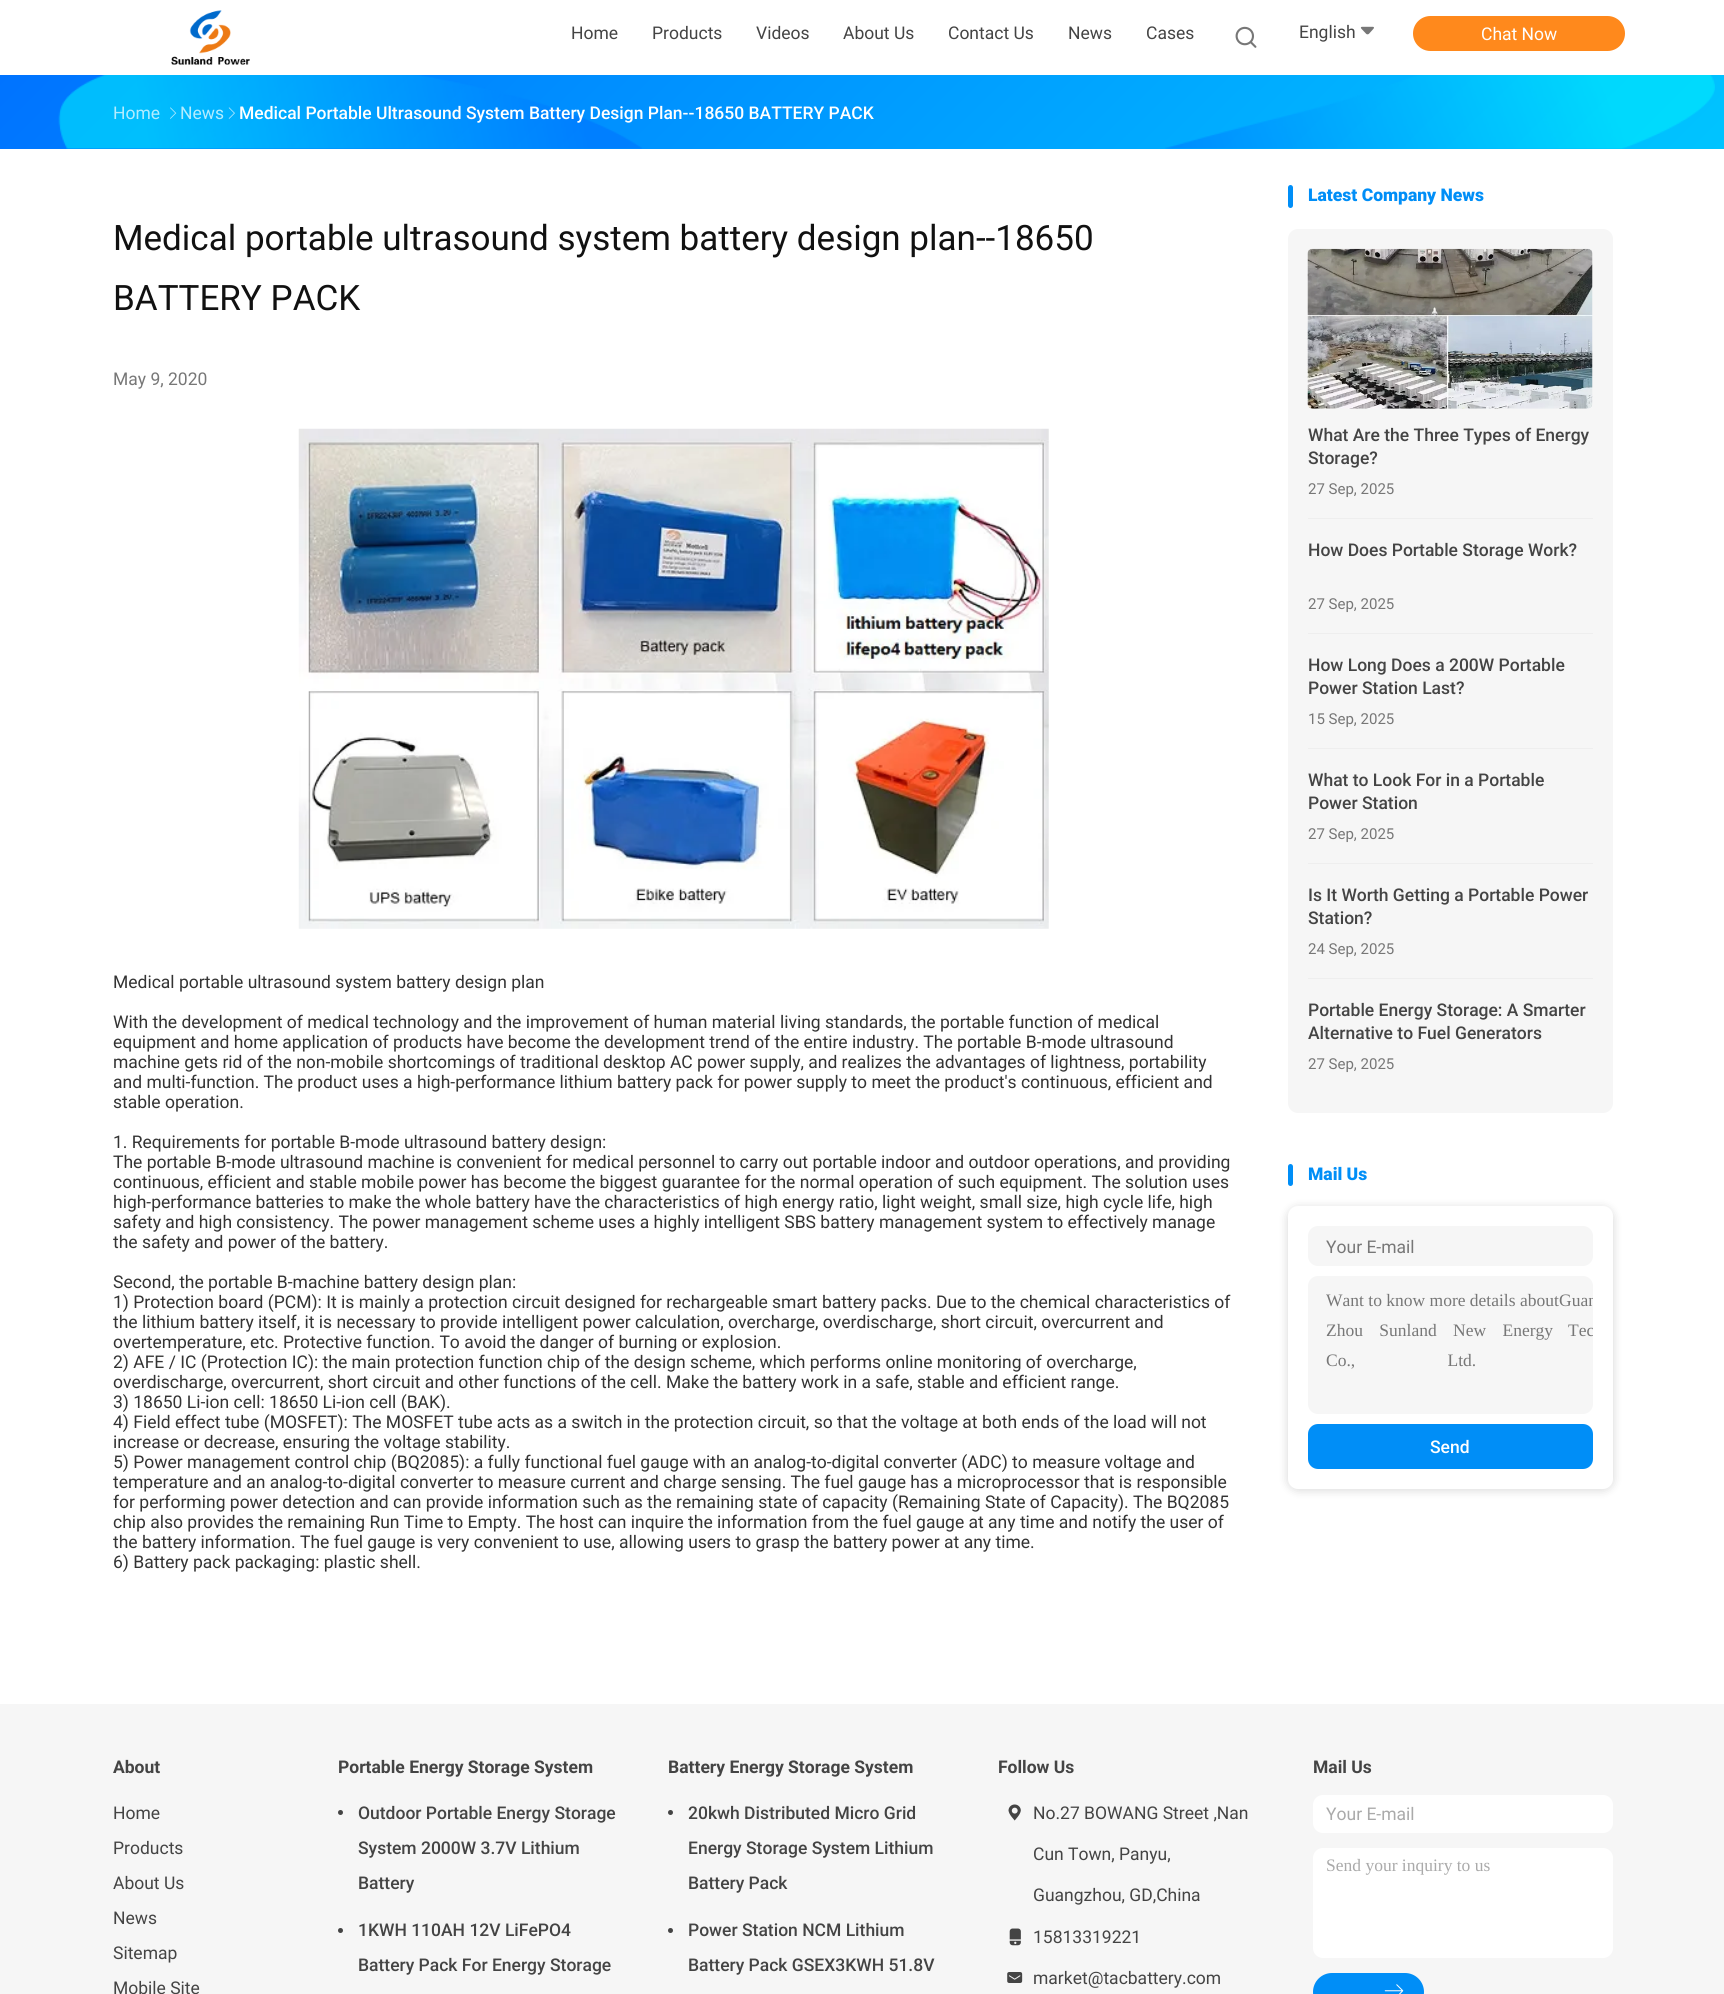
import math
import cairo

surface = cairo.ImageSurface(cairo.FORMAT_RGB24, 1724, 1994)
ctx = cairo.Context(surface)
options = cairo.FontOptions()
options.set_hint_metrics(cairo.HINT_METRICS_OFF)
options.set_hint_style(cairo.HINT_STYLE_NONE)
ctx.set_font_options(options)
ctx.set_miter_limit(4)


def spaced_text(x, y, s, letter, word):
    ctx.move_to(x, y)
    for ch in s:
        ctx.show_text(ch)
        ctx.rel_move_to(letter + word * (ch == ' '), 0)


def round_rect(x, y, w, h, r):
    ctx.new_sub_path()
    for i, (u, v) in enumerate([(x + w - r, y + h - r), (x + r, y + h - r), (x + r, y + r), (x + w - r, y + r)]):
        ctx.arc(u, v, r, i * math.pi / 2, (i + 1) * math.pi / 2)
    ctx.close_path()


def shadow(x, y, w, h, r, blur, alpha):
    ctx.push_group_with_content(cairo.CONTENT_ALPHA)
    ctx.set_operator(cairo.OPERATOR_SOURCE)
    for i in range(15, -16, -2):
        e = blur * i / 6
        if min(w, h) + 2 * e > 0:
            ctx.set_source_rgba(0, 0, 0, alpha * math.erfc((i - 1) / 8.5) / 2)
            round_rect(x - e, y - e, w + 2 * e, h + 2 * e, max(0, min(r + e + blur * .6, min(w, h) / 2 + e)))
            ctx.fill()
    ctx.mask(ctx.pop_group())


def picture(path, x, y, w, h):
    ctx.save()
    ctx.set_source_surface(cairo.ImageSurface.create_from_png(path), x, y)
    ctx.rectangle(x, y, w, h)
    ctx.fill()
    ctx.restore()


ctx.set_source_rgb(1, 1, 1)
ctx.paint()
picture("img1.png", 171, 10, 79, 55)
ctx.select_font_face("Roboto")
ctx.set_font_size(17.5)
ctx.set_source_rgb(0.267, 0.267, 0.267)
ctx.move_to(571, 39)
ctx.show_text("Home")
ctx.move_to(652, 39)
ctx.show_text("Products")
ctx.move_to(756, 39)
ctx.show_text("Videos")
ctx.move_to(843, 39)
ctx.show_text("About Us")
ctx.move_to(948, 39)
ctx.show_text("Contact Us")
ctx.move_to(1068, 39)
ctx.show_text("News")
ctx.move_to(1146, 39)
ctx.show_text("Cases")
picture("img2.png", 1235, 26, 22, 22)
ctx.move_to(1299, 38)
ctx.show_text("English")
picture("img3.png", 1360, 26, 14, 9)
ctx.set_source_rgb(1, 0.537, 0.11)
round_rect(1413, 16, 212, 35, 17.5)
ctx.fill()
ctx.set_source_rgb(1, 1, 1)
ctx.move_to(1481, 40)
ctx.show_text("Chat Now")
gradient = cairo.LinearGradient(413, -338, 1312, 562)
gradient.add_color_stop_rgba(0, 0, 0.451, 1, 1)
gradient.add_color_stop_rgba(1, 0, 0.769, 1, 1)
ctx.set_source(gradient)
ctx.rectangle(0, 75, 1724, 74)
ctx.fill()
picture("img4.png", 58, 75, 584, 74)
picture("img5.png", 1165, 75, 550, 74)
ctx.set_source_rgb(0.702, 0.922, 0.996)
ctx.move_to(113, 119)
ctx.show_text("Home")
picture("img6.png", 170, 107, 7, 12)
ctx.move_to(180, 119)
ctx.show_text("News")
picture("img7.png", 228, 107, 7, 12)
ctx.select_font_face("Roboto Medium")
ctx.set_source_rgb(1, 1, 1)
ctx.move_to(239, 119)
ctx.show_text("Medical Portable Ultrasound System Battery Design Plan--18650 BATTERY PACK")
ctx.select_font_face("Roboto")
ctx.set_font_size(35)
ctx.set_source_rgb(0.067, 0.067, 0.067)
ctx.move_to(113, 250)
ctx.show_text("Medical portable ultrasound system battery design plan--18650")
ctx.move_to(113, 310)
ctx.show_text("BATTERY PACK")
ctx.set_font_size(17.5)
ctx.set_source_rgb(0.467, 0.467, 0.467)
ctx.move_to(113, 385)
ctx.show_text("May 9, 2020")
picture("img8.png", 298, 428, 751, 501)
ctx.set_source_rgb(0.2, 0.2, 0.2)
ctx.move_to(113, 988)
ctx.show_text("Medical portable ultrasound system battery design plan")
ctx.move_to(113, 1028)
ctx.show_text("With the development of medical technology and the improvement of human material living standards, the portable function of medical")
ctx.move_to(113, 1048)
ctx.show_text("equipment and home application of products have become the development trend of the entire industry. The portable B-mode ultrasound")
ctx.move_to(113, 1068)
ctx.show_text("machine gets rid of the non-mobile shortcomings of traditional desktop AC power supply, and realizes the advantages of lightness, portability")
ctx.move_to(113, 1088)
ctx.show_text("and multi-function. The product uses a high-performance lithium battery pack for power supply to meet the product's continuous, efficient and")
ctx.move_to(113, 1108)
ctx.show_text("stable operation.")
ctx.move_to(113, 1148)
ctx.show_text("1. Requirements for portable B-mode ultrasound battery design:")
ctx.move_to(113, 1168)
ctx.show_text("The portable B-mode ultrasound machine is convenient for medical personnel to carry out portable indoor and outdoor operations, and providing")
ctx.move_to(113, 1188)
ctx.show_text("continuous, efficient and stable mobile power has become the biggest guarantee for the normal operation of such equipment. The solution uses")
ctx.move_to(113, 1208)
ctx.show_text("high-performance batteries to make the whole battery have the characteristics of high energy ratio, light weight, small size, high cycle life, high")
ctx.move_to(113, 1228)
ctx.show_text("safety and high consistency. The power management scheme uses a highly intelligent SBS battery management system to effectively manage")
ctx.move_to(113, 1248)
ctx.show_text("the safety and power of the battery.")
ctx.move_to(113, 1288)
ctx.show_text("Second, the portable B-machine battery design plan:")
ctx.move_to(113, 1308)
ctx.show_text("1) Protection board (PCM): It is mainly a protection circuit designed for rechargeable smart battery packs. Due to the chemical characteristics of")
ctx.move_to(113, 1328)
ctx.show_text("the lithium battery itself, it is necessary to provide intelligent power calculation, overcharge, overdischarge, short circuit, overcurrent and")
ctx.move_to(113, 1348)
ctx.show_text("overtemperature, etc. Protective function. To avoid the danger of burning or explosion.")
ctx.move_to(113, 1368)
ctx.show_text("2) AFE / IC (Protection IC): the main protection function chip of the design scheme, which performs online monitoring of overcharge,")
ctx.move_to(113, 1388)
ctx.show_text("overdischarge, overcurrent, short circuit and other functions of the cell. Make the battery work in a safe, stable and efficient range.")
ctx.move_to(113, 1408)
ctx.show_text("3) 18650 Li-ion cell: 18650 Li-ion cell (BAK).")
ctx.move_to(113, 1428)
ctx.show_text("4) Field effect tube (MOSFET): The MOSFET tube acts as a switch in the protection circuit, so that the voltage at both ends of the load will not")
ctx.move_to(113, 1448)
ctx.show_text("increase or decrease, ensuring the voltage stability.")
ctx.move_to(113, 1468)
ctx.show_text("5) Power management control chip (BQ2085): a fully functional fuel gauge with an analog-to-digital converter (ADC) to measure voltage and")
ctx.move_to(113, 1488)
ctx.show_text("temperature and an analog-to-digital converter to measure current and charge sensing. The fuel gauge has a microprocessor that is responsible")
ctx.move_to(113, 1508)
ctx.show_text("for performing power detection and can provide information such as the remaining state of capacity (Remaining State of Capacity). The BQ2085")
ctx.move_to(113, 1528)
ctx.show_text("chip also provides the remaining Run Time to Empty. The host can inquire the information from the fuel gauge at any time and notify the user of")
ctx.move_to(113, 1548)
ctx.show_text("the battery information. The fuel gauge is very convenient to use, allowing users to grasp the battery power at any time.")
ctx.move_to(113, 1568)
ctx.show_text("6) Battery pack packaging: plastic shell.")
ctx.set_source_rgb(0, 0.557, 0.965)
round_rect(1288, 185, 5, 23, 2.5)
ctx.fill()
ctx.select_font_face("Roboto Black")
ctx.move_to(1308, 201)
ctx.show_text("Latest Company News")
ctx.set_source_rgb(0.961, 0.961, 0.961)
round_rect(1288, 229, 325, 884, 10)
ctx.fill()
ctx.set_source_rgb(0.933, 0.933, 0.933)
ctx.rectangle(1308, 518, 285, 1)
ctx.fill()
picture("img9.png", 1307, 248, 286, 161)
ctx.select_font_face("Roboto Medium")
ctx.set_source_rgb(0.267, 0.267, 0.267)
ctx.move_to(1308, 441)
ctx.show_text("What Are the Three Types of Energy")
ctx.move_to(1308, 464)
ctx.show_text("Storage?")
ctx.select_font_face("Roboto")
ctx.set_font_size(15)
ctx.set_source_rgb(0.467, 0.467, 0.467)
ctx.move_to(1308, 494)
ctx.show_text("27 Sep, 2025")
ctx.set_source_rgb(0.933, 0.933, 0.933)
ctx.rectangle(1308, 633, 285, 1)
ctx.fill()
ctx.select_font_face("Roboto Medium")
ctx.set_font_size(17.5)
ctx.set_source_rgb(0.267, 0.267, 0.267)
ctx.move_to(1308, 556)
ctx.show_text("How Does Portable Storage Work?")
ctx.select_font_face("Roboto")
ctx.set_font_size(15)
ctx.set_source_rgb(0.467, 0.467, 0.467)
ctx.move_to(1308, 609)
ctx.show_text("27 Sep, 2025")
ctx.set_source_rgb(0.933, 0.933, 0.933)
ctx.rectangle(1308, 748, 285, 1)
ctx.fill()
ctx.select_font_face("Roboto Medium")
ctx.set_font_size(17.5)
ctx.set_source_rgb(0.267, 0.267, 0.267)
ctx.move_to(1308, 671)
ctx.show_text("How Long Does a 200W Portable")
ctx.move_to(1308, 694)
ctx.show_text("Power Station Last?")
ctx.select_font_face("Roboto")
ctx.set_font_size(15)
ctx.set_source_rgb(0.467, 0.467, 0.467)
ctx.move_to(1308, 724)
ctx.show_text("15 Sep, 2025")
ctx.set_source_rgb(0.933, 0.933, 0.933)
ctx.rectangle(1308, 863, 285, 1)
ctx.fill()
ctx.select_font_face("Roboto Medium")
ctx.set_font_size(17.5)
ctx.set_source_rgb(0.267, 0.267, 0.267)
ctx.move_to(1308, 786)
ctx.show_text("What to Look For in a Portable")
ctx.move_to(1308, 809)
ctx.show_text("Power Station")
ctx.select_font_face("Roboto")
ctx.set_font_size(15)
ctx.set_source_rgb(0.467, 0.467, 0.467)
ctx.move_to(1308, 839)
ctx.show_text("27 Sep, 2025")
ctx.set_source_rgb(0.933, 0.933, 0.933)
ctx.rectangle(1308, 978, 285, 1)
ctx.fill()
ctx.select_font_face("Roboto Medium")
ctx.set_font_size(17.5)
ctx.set_source_rgb(0.267, 0.267, 0.267)
ctx.move_to(1308, 901)
ctx.show_text("Is It Worth Getting a Portable Power")
ctx.move_to(1308, 924)
ctx.show_text("Station?")
ctx.select_font_face("Roboto")
ctx.set_font_size(15)
ctx.set_source_rgb(0.467, 0.467, 0.467)
ctx.move_to(1308, 954)
ctx.show_text("24 Sep, 2025")
ctx.select_font_face("Roboto Medium")
ctx.set_font_size(17.5)
ctx.set_source_rgb(0.267, 0.267, 0.267)
ctx.move_to(1308, 1016)
ctx.show_text("Portable Energy Storage: A Smarter")
ctx.move_to(1308, 1039)
ctx.show_text("Alternative to Fuel Generators")
ctx.select_font_face("Roboto")
ctx.set_font_size(15)
ctx.set_source_rgb(0.467, 0.467, 0.467)
ctx.move_to(1308, 1069)
ctx.show_text("27 Sep, 2025")
ctx.set_source_rgb(0, 0.557, 0.965)
round_rect(1288, 1164, 5, 22, 2.5)
ctx.fill()
ctx.select_font_face("Roboto Black")
ctx.set_font_size(17.5)
ctx.move_to(1308, 1180)
ctx.show_text("Mail Us")
ctx.set_source_rgb(0, 0, 0)
shadow(1288, 1208, 325, 282, 10, 5, 0.16)
ctx.set_source_rgb(1, 1, 1)
round_rect(1288, 1206, 325, 283, 10)
ctx.fill()
ctx.set_source_rgb(0.961, 0.961, 0.961)
round_rect(1308, 1226, 285, 40, 10)
ctx.fill()
ctx.select_font_face("Roboto")
ctx.set_source_rgb(0.467, 0.467, 0.467)
ctx.move_to(1326, 1253)
ctx.show_text("Your E-mail")
ctx.set_source_rgb(0.961, 0.961, 0.961)
round_rect(1308, 1276, 285, 138, 10)
ctx.fill()
ctx.select_font_face("Liberation Serif")
ctx.set_source_rgb(0.467, 0.467, 0.467)
ctx.move_to(1326, 1306)
ctx.show_text("Want to know more details about")
ctx.save()
round_rect(1308, 1276, 285, 138, 10)
ctx.clip()
ctx.move_to(1559, 1306)
ctx.show_text("Guan")
ctx.restore()
spaced_text(1326, 1336, "Zhou Sunland New Energy", 0, 12)
ctx.save()
round_rect(1308, 1276, 285, 138, 10)
ctx.clip()
ctx.move_to(1568, 1336)
ctx.show_text("Tec")
ctx.restore()
spaced_text(1326, 1366, "Co., Ltd.", 0, 88)
ctx.set_source_rgb(0, 0.557, 0.965)
round_rect(1308, 1424, 285, 45, 10)
ctx.fill()
ctx.select_font_face("Roboto Medium")
ctx.set_source_rgb(1, 1, 1)
ctx.move_to(1430, 1453)
ctx.show_text("Send")
ctx.set_source_rgb(0.961, 0.961, 0.961)
ctx.rectangle(0, 1704, 1724, 290)
ctx.fill()
ctx.select_font_face("Roboto", cairo.FONT_SLANT_NORMAL, cairo.FONT_WEIGHT_BOLD)
ctx.set_source_rgb(0.267, 0.267, 0.267)
ctx.move_to(113, 1773)
ctx.show_text("About")
ctx.select_font_face("Roboto")
ctx.move_to(113, 1819)
ctx.show_text("Home")
ctx.move_to(113, 1854)
ctx.show_text("Products")
ctx.move_to(113, 1889)
ctx.show_text("About Us")
ctx.move_to(113, 1924)
ctx.show_text("News")
ctx.move_to(113, 1959)
ctx.show_text("Sitemap")
ctx.move_to(113, 1994)
ctx.show_text("Mobile Site")
ctx.select_font_face("Roboto", cairo.FONT_SLANT_NORMAL, cairo.FONT_WEIGHT_BOLD)
ctx.move_to(338, 1773)
ctx.show_text("Portable Energy Storage System")
ctx.new_path()
ctx.arc(340.5, 1812.5, 2.5, 0, 2 * math.pi)
ctx.fill()
ctx.select_font_face("Roboto Medium")
ctx.move_to(358, 1819)
ctx.show_text("Outdoor Portable Energy Storage")
ctx.move_to(358, 1854)
ctx.show_text("System 2000W 3.7V Lithium")
ctx.move_to(358, 1889)
ctx.show_text("Battery")
ctx.new_path()
ctx.arc(340.5, 1930.5, 2.5, 0, 2 * math.pi)
ctx.fill()
ctx.move_to(358, 1936)
ctx.show_text("1KWH 110AH 12V LiFePO4")
ctx.move_to(358, 1971)
ctx.show_text("Battery Pack For Energy Storage")
ctx.select_font_face("Roboto", cairo.FONT_SLANT_NORMAL, cairo.FONT_WEIGHT_BOLD)
ctx.move_to(668, 1773)
ctx.show_text("Battery Energy Storage System")
ctx.new_path()
ctx.arc(670.5, 1812.5, 2.5, 0, 2 * math.pi)
ctx.fill()
ctx.select_font_face("Roboto Medium")
ctx.move_to(688, 1819)
ctx.show_text("20kwh Distributed Micro Grid")
ctx.move_to(688, 1854)
ctx.show_text("Energy Storage System Lithium")
ctx.move_to(688, 1889)
ctx.show_text("Battery Pack")
ctx.new_path()
ctx.arc(670.5, 1930.5, 2.5, 0, 2 * math.pi)
ctx.fill()
ctx.move_to(688, 1936)
ctx.show_text("Power Station NCM Lithium")
ctx.move_to(688, 1971)
ctx.show_text("Battery Pack GSEX3KWH 51.8V")
ctx.select_font_face("Roboto", cairo.FONT_SLANT_NORMAL, cairo.FONT_WEIGHT_BOLD)
ctx.move_to(998, 1773)
ctx.show_text("Follow Us")
picture("img10.png", 1008, 1804, 13, 17)
ctx.select_font_face("Roboto")
ctx.move_to(1033, 1819)
ctx.show_text("No.27 BOWANG Street ,Nan")
ctx.move_to(1033, 1860)
ctx.show_text("Cun Town, Panyu,")
ctx.move_to(1033, 1901)
ctx.show_text("Guangzhou, GD,China")
picture("img11.png", 1009, 1928, 12, 18)
ctx.move_to(1033, 1943)
ctx.show_text("15813319221")
picture("img12.png", 1007, 1972, 16, 11)
ctx.move_to(1033, 1984)
ctx.show_text("market@tacbattery.com")
ctx.select_font_face("Roboto", cairo.FONT_SLANT_NORMAL, cairo.FONT_WEIGHT_BOLD)
ctx.move_to(1313, 1773)
ctx.show_text("Mail Us")
ctx.set_source_rgb(1, 1, 1)
round_rect(1313, 1795, 300, 38, 10)
ctx.fill()
ctx.select_font_face("Roboto")
ctx.set_source_rgb(0.667, 0.667, 0.667)
ctx.move_to(1326, 1820)
ctx.show_text("Your E-mail")
ctx.set_source_rgb(1, 1, 1)
round_rect(1313, 1848, 300, 110, 10)
ctx.fill()
ctx.select_font_face("Liberation Serif")
ctx.set_source_rgb(0.667, 0.667, 0.667)
ctx.move_to(1326, 1871)
ctx.show_text("Send your inquiry to us")
ctx.set_source_rgb(0, 0.557, 0.965)
round_rect(1313, 1973, 111, 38, 19)
ctx.fill()
picture("img13.png", 1384, 1984, 20, 10)
surface.write_to_png("page.png")
